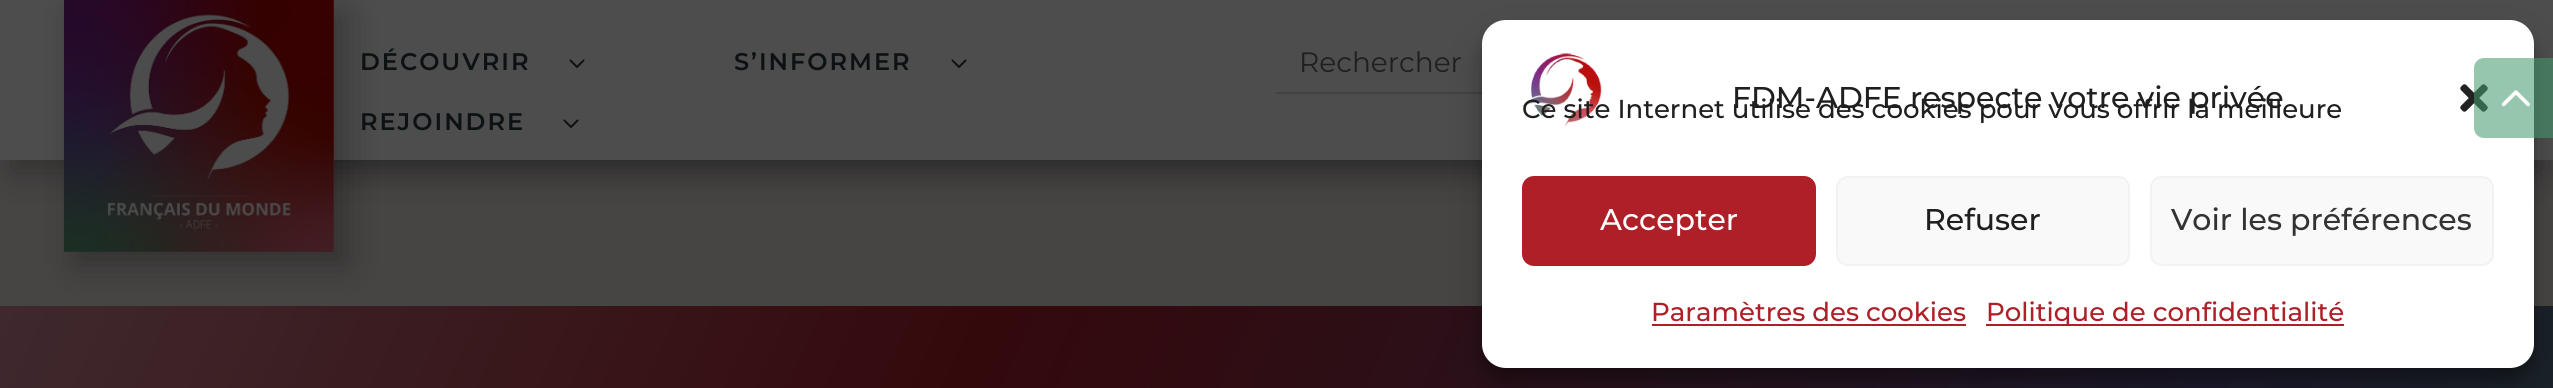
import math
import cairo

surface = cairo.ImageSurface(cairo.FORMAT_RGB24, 2553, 388)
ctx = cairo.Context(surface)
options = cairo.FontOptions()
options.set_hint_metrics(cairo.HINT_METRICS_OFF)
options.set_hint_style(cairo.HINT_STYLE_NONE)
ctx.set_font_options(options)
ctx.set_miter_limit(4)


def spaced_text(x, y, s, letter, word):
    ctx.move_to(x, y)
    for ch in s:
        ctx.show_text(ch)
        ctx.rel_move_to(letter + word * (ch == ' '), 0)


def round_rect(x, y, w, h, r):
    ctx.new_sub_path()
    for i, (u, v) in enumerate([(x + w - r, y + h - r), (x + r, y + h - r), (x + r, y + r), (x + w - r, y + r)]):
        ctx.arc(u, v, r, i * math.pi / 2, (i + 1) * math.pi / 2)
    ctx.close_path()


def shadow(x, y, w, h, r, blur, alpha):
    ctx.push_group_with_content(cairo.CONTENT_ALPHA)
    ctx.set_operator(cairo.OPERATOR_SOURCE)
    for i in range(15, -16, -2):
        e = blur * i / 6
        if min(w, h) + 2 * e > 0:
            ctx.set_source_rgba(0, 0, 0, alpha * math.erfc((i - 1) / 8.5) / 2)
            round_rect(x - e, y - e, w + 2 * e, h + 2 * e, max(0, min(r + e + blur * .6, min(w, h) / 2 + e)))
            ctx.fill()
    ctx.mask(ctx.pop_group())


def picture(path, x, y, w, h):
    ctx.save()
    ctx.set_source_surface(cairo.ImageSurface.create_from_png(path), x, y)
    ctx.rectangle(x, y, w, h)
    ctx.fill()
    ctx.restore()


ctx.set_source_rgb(0.278, 0.271, 0.267)
ctx.paint()
ctx.set_source_rgb(0, 0, 0)
shadow(256, -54, 1324, 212, 0, 18, 0.3)
gradient = cairo.LinearGradient(-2.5, 311, 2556, 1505)
gradient.add_color_stop_rgba(0, 0.247, 0.161, 0.18, 1)
gradient.add_color_stop_rgba(0.32, 0.204, 0.035, 0.047, 1)
gradient.add_color_stop_rgba(0.72, 0.114, 0.102, 0.173, 1)
gradient.add_color_stop_rgba(1, 0.082, 0.18, 0.133, 1)
ctx.set_source(gradient)
ctx.rectangle(0, 306, 2553, 82)
ctx.fill()
ctx.set_source_rgb(0, 0, 0)
shadow(12, 36, 2530, 136, 0, 18, 0.3)
ctx.set_source_rgb(0.302, 0.302, 0.302)
ctx.rectangle(0, 0, 2553, 160)
ctx.fill()
ctx.rectangle(64, 160, 270, 92)
ctx.fill()
ctx.set_source_rgb(0, 0, 0)
shadow(76, 12, 270, 252, 0, 18, 0.3)
picture("img1.png", 64, 0, 270, 252)
ctx.select_font_face("Montserrat SemiBold")
ctx.set_font_size(24)
ctx.set_source_rgb(0.047, 0.067, 0.078)
spaced_text(360, 70, "DÉCOUVRIR", 2, 0)
picture("img2.png", 569, 59, 16, 9)
spaced_text(734, 70, "S’INFORMER", 2, 0)
picture("img2.png", 951, 59, 16, 9)
spaced_text(360, 130, "REJOINDRE", 2, 0)
picture("img2.png", 563, 119, 16, 9)
ctx.set_source_rgb(0.259, 0.259, 0.259)
ctx.rectangle(1276, 92, 206, 2)
ctx.fill()
ctx.select_font_face("Montserrat")
ctx.set_font_size(28)
ctx.set_source_rgb(0.122, 0.122, 0.122)
ctx.move_to(1299, 72)
ctx.show_text("Rechercher")
ctx.set_source_rgb(0, 0, 0)
shadow(1482, 32, 1052, 348, 24, 6, 0.23)
shadow(1482, 40, 1052, 348, 24, 20, 0.19)
ctx.set_source_rgb(1, 1, 1)
round_rect(1482, 20, 1052, 348, 24)
ctx.fill()
picture("img3.png", 1522, 53, 80, 74)
ctx.select_font_face("Montserrat Medium")
ctx.set_font_size(30)
ctx.set_source_rgb(0.122, 0.122, 0.122)
ctx.move_to(1732, 108)
ctx.show_text("FDM-ADFE respecte votre vie privée")
picture("img4.png", 2460, 84, 28, 28)
ctx.set_font_size(26)
ctx.move_to(1522, 118)
ctx.show_text("Ce site Internet utilise des cookies pour vous offrir la meilleure")
ctx.set_source_rgb(0.682, 0.122, 0.153)
round_rect(1523, 177, 292, 88, 11)
ctx.fill_preserve()
ctx.stroke()
ctx.set_font_size(30)
ctx.set_source_rgb(1, 1, 1)
ctx.move_to(1600, 230)
ctx.show_text("Accepter")
ctx.set_source_rgb(0.976, 0.976, 0.976)
round_rect(1837, 177, 292, 88, 11)
ctx.fill_preserve()
ctx.set_source_rgb(0.949, 0.949, 0.949)
ctx.stroke()
ctx.set_source_rgb(0.122, 0.122, 0.122)
ctx.move_to(1924, 230)
ctx.show_text("Refuser")
ctx.set_source_rgb(0.976, 0.976, 0.976)
round_rect(2151, 177, 342, 88, 11)
ctx.fill_preserve()
ctx.set_source_rgb(0.949, 0.949, 0.949)
ctx.stroke()
ctx.set_source_rgb(0.2, 0.2, 0.2)
ctx.move_to(2171, 230)
ctx.show_text("Voir les préférences")
ctx.set_font_size(26)
ctx.set_source_rgb(0.682, 0.122, 0.153)
ctx.move_to(1651, 321)
ctx.show_text("Paramètres des cookies")
ctx.rectangle(1652, 324, 314, 2)
ctx.fill()
ctx.rectangle(1986, 324, 358, 2)
ctx.fill()
ctx.move_to(1986, 321)
ctx.show_text("Politique de confidentialité")
ctx.set_source_rgba(0.275, 0.6, 0.439, 0.56)
ctx.new_path()
ctx.move_to(2484, 58)
ctx.line_to(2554, 58)
ctx.line_to(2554, 138)
ctx.line_to(2484, 138)
ctx.curve_to(2478.5, 138, 2474, 133.5, 2474, 128)
ctx.line_to(2474, 68)
ctx.curve_to(2474, 62.5, 2478.5, 58, 2484, 58)
ctx.close_path()
ctx.fill()
picture("img5.png", 2501, 90, 29, 17)
surface.write_to_png("page.png")
